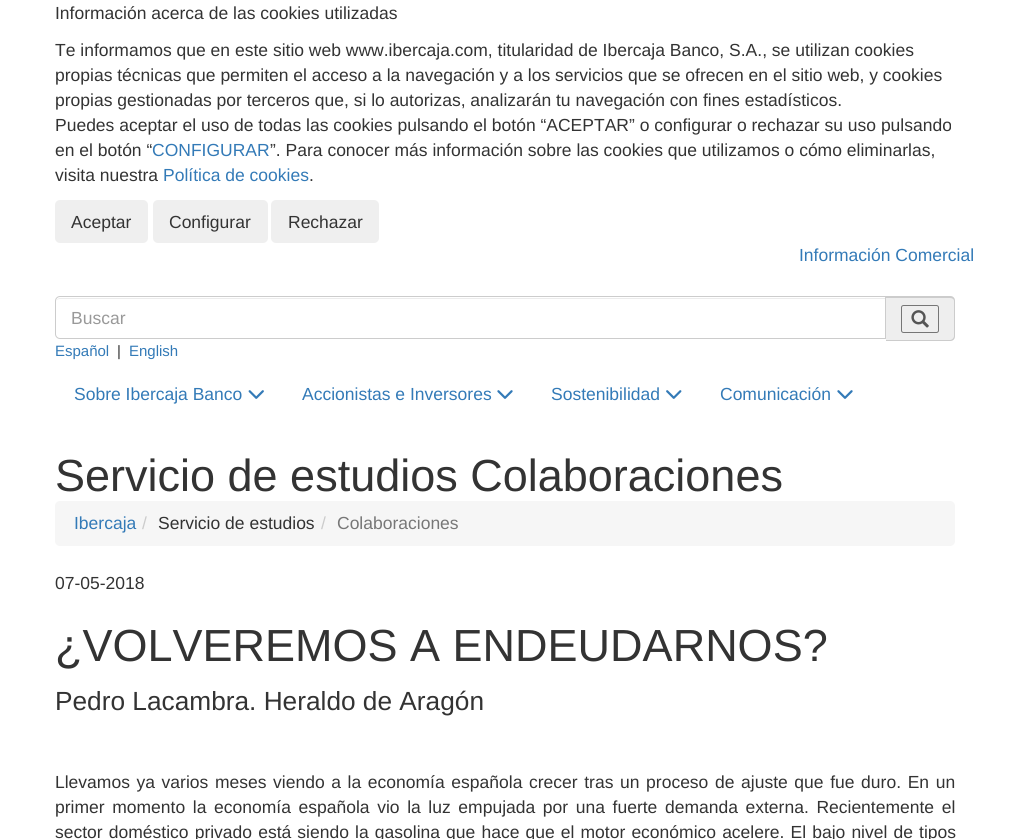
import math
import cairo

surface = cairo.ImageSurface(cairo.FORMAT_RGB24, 1009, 839)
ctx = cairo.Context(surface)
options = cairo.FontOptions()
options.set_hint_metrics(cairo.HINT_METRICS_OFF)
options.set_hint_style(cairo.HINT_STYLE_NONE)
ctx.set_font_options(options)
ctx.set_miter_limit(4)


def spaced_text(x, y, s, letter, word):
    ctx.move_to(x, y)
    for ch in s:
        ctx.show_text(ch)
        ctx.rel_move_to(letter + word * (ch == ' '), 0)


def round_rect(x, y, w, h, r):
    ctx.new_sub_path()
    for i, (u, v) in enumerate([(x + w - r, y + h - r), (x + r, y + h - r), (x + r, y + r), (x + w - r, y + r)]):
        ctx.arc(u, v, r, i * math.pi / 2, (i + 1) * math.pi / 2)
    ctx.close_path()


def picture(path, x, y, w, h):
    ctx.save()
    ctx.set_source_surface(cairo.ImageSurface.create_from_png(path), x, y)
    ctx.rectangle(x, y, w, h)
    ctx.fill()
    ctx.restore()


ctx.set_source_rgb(1, 1, 1)
ctx.paint()
ctx.select_font_face("Liberation Sans")
ctx.set_font_size(17.5)
ctx.set_source_rgb(0.2, 0.2, 0.2)
ctx.move_to(55, 19)
ctx.show_text("Información acerca de las cookies utilizadas")
ctx.move_to(55, 56)
ctx.show_text("Te informamos que en este sitio web www.ibercaja.com, titularidad de Ibercaja Banco, S.A., se utilizan cookies")
ctx.move_to(55, 81)
ctx.show_text("propias técnicas que permiten el acceso a la navegación y a los servicios que se ofrecen en el sitio web, y cookies")
ctx.move_to(55, 106)
ctx.show_text("propias gestionadas por terceros que, si lo autorizas, analizarán tu navegación con fines estadísticos.")
ctx.move_to(55, 131)
ctx.show_text("Puedes aceptar el uso de todas las cookies pulsando el botón “ACEPTAR” o configurar o rechazar su uso pulsando")
ctx.move_to(55, 156)
ctx.show_text("en el botón “")
ctx.set_source_rgb(0.2, 0.478, 0.718)
ctx.move_to(152, 156)
ctx.show_text("CONFIGURAR")
ctx.set_source_rgb(0.2, 0.2, 0.2)
ctx.move_to(270, 156)
ctx.show_text("”. Para conocer más información sobre las cookies que utilizamos o cómo eliminarlas,")
ctx.move_to(55, 181)
ctx.show_text("visita nuestra")
ctx.set_source_rgb(0.2, 0.478, 0.718)
ctx.move_to(163, 181)
ctx.show_text("Política de cookies")
ctx.set_source_rgb(0.2, 0.2, 0.2)
ctx.move_to(309, 181)
ctx.show_text(".")
ctx.set_source_rgb(0.937, 0.937, 0.937)
round_rect(55, 200, 93, 43, 5)
ctx.fill()
ctx.set_source_rgb(0.2, 0.2, 0.2)
ctx.move_to(71, 228)
ctx.show_text("Aceptar")
ctx.set_source_rgb(0.937, 0.937, 0.937)
round_rect(153, 200, 115, 43, 5)
ctx.fill()
ctx.set_source_rgb(0.2, 0.2, 0.2)
ctx.move_to(169, 228)
ctx.show_text("Configurar")
ctx.set_source_rgb(0.937, 0.937, 0.937)
round_rect(271, 200, 108, 43, 5)
ctx.fill()
ctx.set_source_rgb(0.2, 0.2, 0.2)
ctx.move_to(288, 228)
ctx.show_text("Rechazar")
ctx.set_source_rgb(0.2, 0.478, 0.718)
ctx.move_to(799, 261)
ctx.show_text("Información Comercial")
ctx.set_source_rgb(0.925, 0.925, 0.925)
ctx.new_path()
ctx.move_to(60, 299)
ctx.line_to(885, 299)
ctx.line_to(885, 298)
ctx.line_to(60, 298)
ctx.curve_to(58, 298, 56, 300, 56, 302)
ctx.curve_to(56, 300, 58, 299, 60, 299)
ctx.close_path()
ctx.fill()
ctx.new_path()
ctx.move_to(60, 296.5)
ctx.line_to(885.5, 296.5)
ctx.line_to(885.5, 338.5)
ctx.line_to(60, 338.5)
ctx.curve_to(57.5, 338.5, 55.5, 336.5, 55.5, 334)
ctx.line_to(55.5, 301)
ctx.curve_to(55.5, 298.5, 57.5, 296.5, 60, 296.5)
ctx.close_path()
ctx.set_source_rgb(0.8, 0.8, 0.8)
ctx.set_line_width(1)
ctx.stroke()
ctx.set_source_rgb(0.6, 0.6, 0.6)
ctx.move_to(71, 324)
ctx.show_text("Buscar")
ctx.set_source_rgb(0.933, 0.933, 0.933)
ctx.new_path()
ctx.move_to(886, 296)
ctx.line_to(950, 296)
ctx.curve_to(953, 296, 955, 298, 955, 301)
ctx.line_to(955, 336)
ctx.curve_to(955, 339, 953, 341, 950, 341)
ctx.line_to(886, 341)
ctx.close_path()
ctx.fill()
ctx.set_source_rgb(0.8, 0.8, 0.8)
ctx.set_fill_rule(cairo.FILL_RULE_EVEN_ODD)
ctx.new_path()
ctx.move_to(886, 296)
ctx.line_to(950, 296)
ctx.curve_to(953, 296, 955, 298, 955, 301)
ctx.line_to(955, 336)
ctx.curve_to(955, 339, 953, 341, 950, 341)
ctx.line_to(886, 341)
ctx.close_path()
ctx.move_to(886, 298)
ctx.line_to(950, 298)
ctx.curve_to(952, 298, 954, 299, 954, 301)
ctx.line_to(954, 336)
ctx.curve_to(954, 338, 952, 340, 950, 340)
ctx.line_to(886, 340)
ctx.close_path()
ctx.fill()
round_rect(901.5, 305.5, 37, 27, 2)
ctx.set_source_rgb(0.463, 0.463, 0.463)
ctx.stroke()
picture("img1.png", 911, 310, 18, 18)
ctx.set_font_size(15)
ctx.set_source_rgb(0.2, 0.478, 0.718)
ctx.move_to(55, 356)
ctx.show_text("Español")
ctx.set_source_rgb(0.2, 0.2, 0.2)
ctx.move_to(117, 356)
ctx.show_text("|")
ctx.set_source_rgb(0.2, 0.478, 0.718)
ctx.move_to(129, 356)
ctx.show_text("English")
ctx.set_font_size(17.5)
ctx.move_to(74, 400)
ctx.show_text("Sobre Ibercaja Banco")
picture("img2.png", 248, 390, 16, 9)
ctx.move_to(302, 400)
ctx.show_text("Accionistas e Inversores")
picture("img3.png", 497, 390, 16, 9)
ctx.move_to(551, 400)
ctx.show_text("Sostenibilidad")
picture("img4.png", 666, 390, 16, 9)
ctx.move_to(720, 400)
ctx.show_text("Comunicación")
picture("img3.png", 837, 390, 16, 9)
ctx.set_font_size(45)
ctx.set_source_rgb(0.2, 0.2, 0.2)
ctx.move_to(55, 491)
ctx.show_text("Servicio de estudios Colaboraciones")
ctx.set_source_rgb(0.961, 0.961, 0.961)
round_rect(55, 501, 900, 45, 5)
ctx.fill()
ctx.set_font_size(17.5)
ctx.set_source_rgb(0.2, 0.478, 0.718)
ctx.move_to(74, 529)
ctx.show_text("Ibercaja")
ctx.set_source_rgb(0.8, 0.8, 0.8)
ctx.move_to(142, 529)
ctx.show_text("/")
ctx.set_source_rgb(0.2, 0.2, 0.2)
ctx.move_to(158, 529)
ctx.show_text("Servicio de estudios")
ctx.set_source_rgb(0.8, 0.8, 0.8)
ctx.move_to(321, 529)
ctx.show_text("/")
ctx.set_source_rgb(0.467, 0.467, 0.467)
ctx.move_to(337, 529)
ctx.show_text("Colaboraciones")
ctx.set_source_rgb(0.2, 0.2, 0.2)
ctx.move_to(55, 589)
ctx.show_text("07-05-2018")
ctx.set_font_size(45)
ctx.move_to(55, 661)
ctx.show_text("¿VOLVEREMOS A ENDEUDARNOS?")
ctx.set_font_size(26.25)
ctx.move_to(55, 710)
ctx.show_text("Pedro Lacambra. Heraldo de Aragón")
ctx.set_font_size(17.5)
spaced_text(55, 788, "Llevamos ya varios meses viendo a la economía española crecer tras un proceso de ajuste que fue duro. En un", 0, 1.75)
spaced_text(55, 813, "primer momento la economía española vio la luz empujada por una fuerte demanda externa. Recientemente el", 0, 2.75)
spaced_text(55, 838, "sector doméstico privado está siendo la gasolina que hace que el motor económico acelere. El bajo nivel de tipos", 0, 1.25)
surface.write_to_png("page.png")
